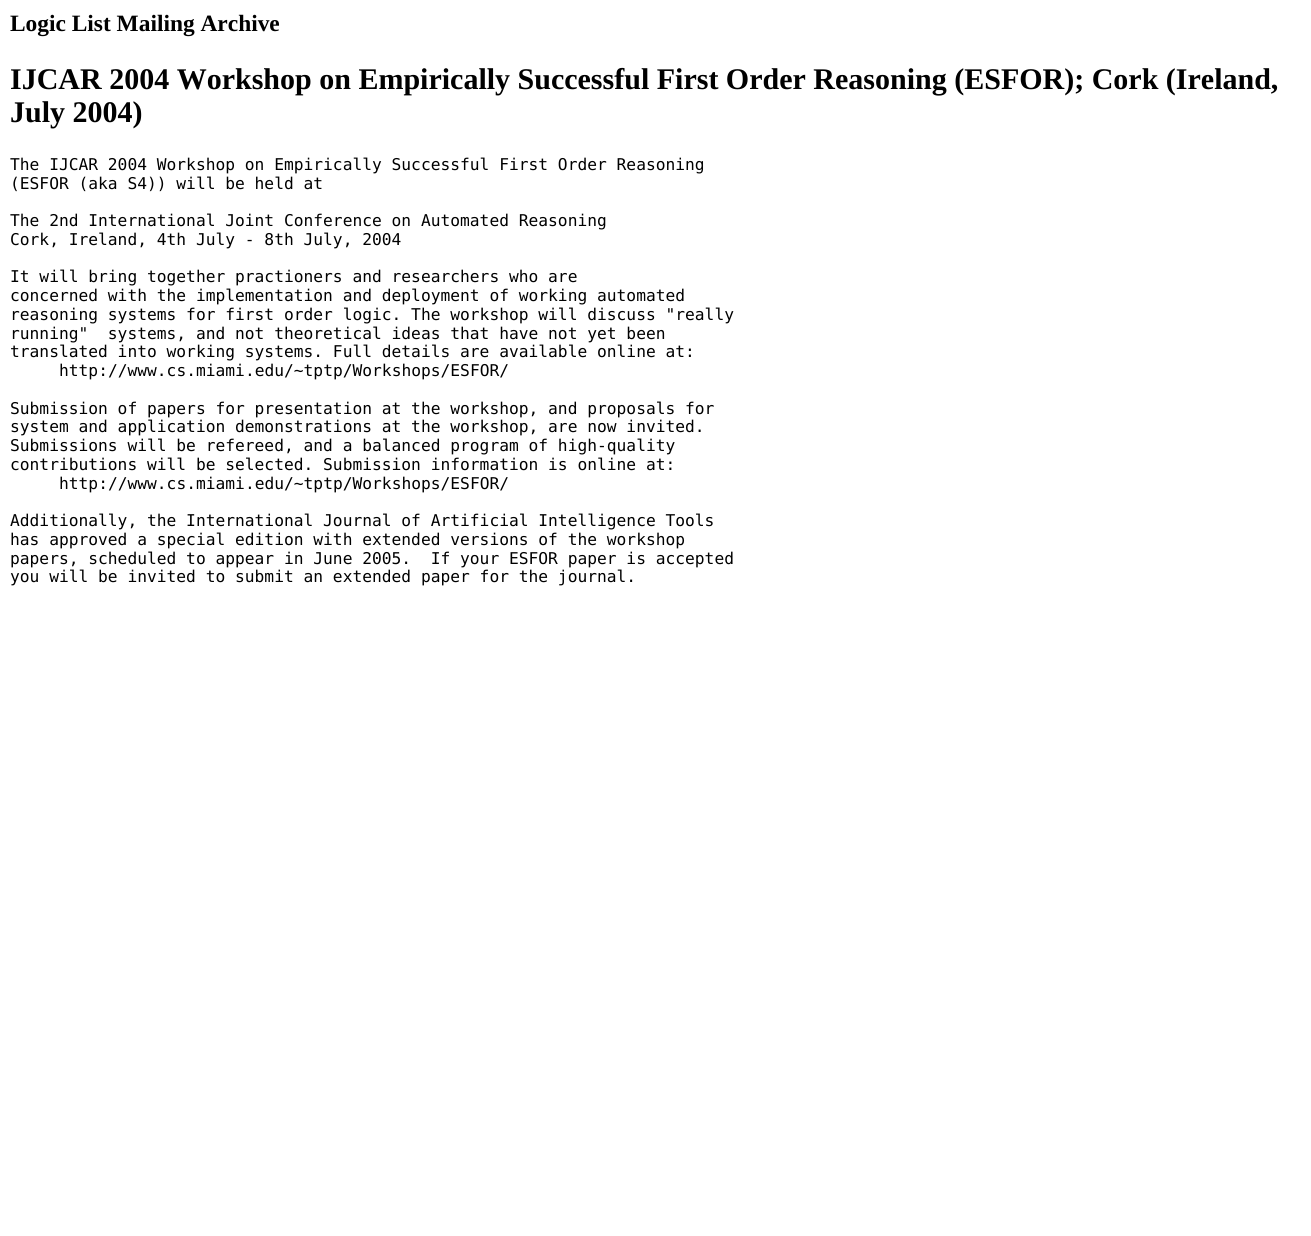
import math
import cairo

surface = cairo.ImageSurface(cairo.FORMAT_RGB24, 1311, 1236)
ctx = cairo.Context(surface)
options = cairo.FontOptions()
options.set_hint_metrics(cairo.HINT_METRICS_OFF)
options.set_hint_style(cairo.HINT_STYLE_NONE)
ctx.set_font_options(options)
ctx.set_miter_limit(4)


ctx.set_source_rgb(1, 1, 1)
ctx.paint()
ctx.select_font_face("Liberation Serif", cairo.FONT_SLANT_NORMAL, cairo.FONT_WEIGHT_BOLD)
ctx.set_font_size(23.4)
ctx.set_source_rgb(0, 0, 0)
ctx.move_to(10, 31)
ctx.show_text("Logic List Mailing Archive")
ctx.set_font_size(30)
ctx.move_to(10, 89)
ctx.show_text("IJCAR 2004 Workshop on Empirically Successful First Order Reasoning (ESFOR); Cork (Ireland,")
ctx.move_to(10, 122)
ctx.show_text("July 2004)")
ctx.select_font_face("DejaVu Sans Mono")
ctx.set_font_size(16.25)
ctx.move_to(10, 170)
ctx.show_text("The IJCAR 2004 Workshop on Empirically Successful First Order Reasoning")
ctx.move_to(10, 189)
ctx.show_text("(ESFOR (aka S4)) will be held at")
ctx.move_to(10, 226)
ctx.show_text("The 2nd International Joint Conference on Automated Reasoning")
ctx.move_to(10, 245)
ctx.show_text("Cork, Ireland, 4th July - 8th July, 2004")
ctx.move_to(10, 282)
ctx.show_text("It will bring together practioners and researchers who are")
ctx.move_to(10, 301)
ctx.show_text("concerned with the implementation and deployment of working automated")
ctx.move_to(10, 320)
ctx.show_text("reasoning systems for first order logic. The workshop will discuss \"really")
ctx.move_to(10, 339)
ctx.show_text("running\"  systems, and not theoretical ideas that have not yet been")
ctx.move_to(10, 357)
ctx.show_text("translated into working systems. Full details are available online at:")
ctx.move_to(59, 376)
ctx.show_text("http://www.cs.miami.edu/~tptp/Workshops/ESFOR/")
ctx.move_to(10, 414)
ctx.show_text("Submission of papers for presentation at the workshop, and proposals for")
ctx.move_to(10, 432)
ctx.show_text("system and application demonstrations at the workshop, are now invited.")
ctx.move_to(10, 451)
ctx.show_text("Submissions will be refereed, and a balanced program of high-quality")
ctx.move_to(10, 470)
ctx.show_text("contributions will be selected. Submission information is online at:")
ctx.move_to(59, 489)
ctx.show_text("http://www.cs.miami.edu/~tptp/Workshops/ESFOR/")
ctx.move_to(10, 526)
ctx.show_text("Additionally, the International Journal of Artificial Intelligence Tools")
ctx.move_to(10, 545)
ctx.show_text("has approved a special edition with extended versions of the workshop")
ctx.move_to(10, 564)
ctx.show_text("papers, scheduled to appear in June 2005.  If your ESFOR paper is accepted")
ctx.move_to(10, 582)
ctx.show_text("you will be invited to submit an extended paper for the journal.")
surface.write_to_png("page.png")
